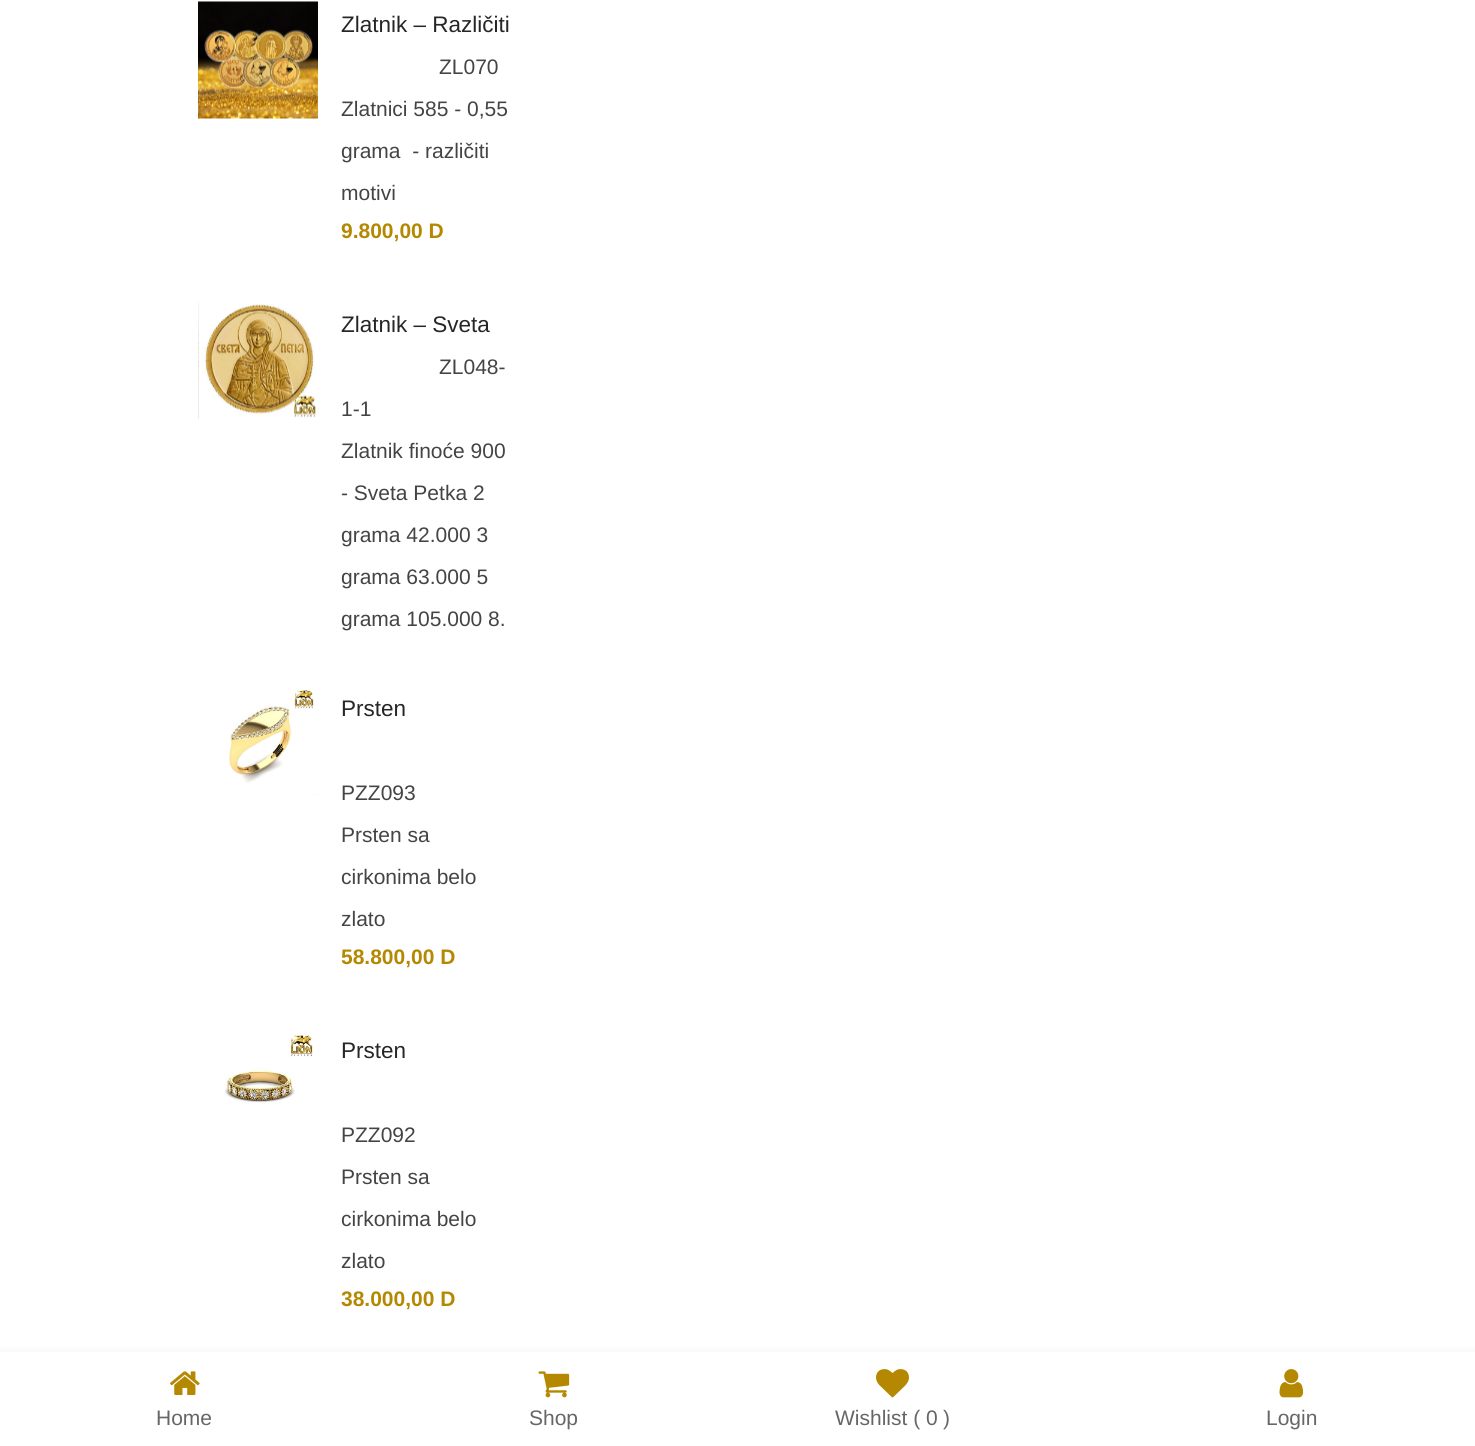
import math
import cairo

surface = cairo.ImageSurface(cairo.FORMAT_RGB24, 1475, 1446)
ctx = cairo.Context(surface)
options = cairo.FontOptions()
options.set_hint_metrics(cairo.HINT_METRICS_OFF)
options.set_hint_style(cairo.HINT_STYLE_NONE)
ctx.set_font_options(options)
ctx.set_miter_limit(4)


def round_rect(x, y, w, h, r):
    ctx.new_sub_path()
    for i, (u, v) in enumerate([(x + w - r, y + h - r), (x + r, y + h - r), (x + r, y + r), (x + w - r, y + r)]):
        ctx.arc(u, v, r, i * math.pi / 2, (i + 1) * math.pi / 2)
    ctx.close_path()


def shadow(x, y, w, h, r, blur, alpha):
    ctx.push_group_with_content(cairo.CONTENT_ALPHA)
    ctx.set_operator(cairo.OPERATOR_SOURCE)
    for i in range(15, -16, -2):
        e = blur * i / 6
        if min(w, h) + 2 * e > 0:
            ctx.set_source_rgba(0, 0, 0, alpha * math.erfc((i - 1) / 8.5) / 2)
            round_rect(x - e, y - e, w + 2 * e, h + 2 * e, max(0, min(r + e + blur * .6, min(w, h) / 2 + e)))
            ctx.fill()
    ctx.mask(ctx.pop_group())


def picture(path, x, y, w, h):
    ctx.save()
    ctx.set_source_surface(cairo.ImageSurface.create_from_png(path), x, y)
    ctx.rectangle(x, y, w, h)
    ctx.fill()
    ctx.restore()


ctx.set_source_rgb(1, 1, 1)
ctx.paint()
picture("img1.png", 198, 1, 120, 118)
ctx.select_font_face("Liberation Sans")
ctx.set_font_size(22.5)
ctx.set_source_rgb(0.149, 0.149, 0.149)
ctx.move_to(341, 32)
ctx.show_text("Zlatnik – Različiti")
ctx.set_font_size(21)
ctx.set_source_rgb(0.267, 0.267, 0.267)
ctx.move_to(439, 74)
ctx.show_text("ZL070")
ctx.move_to(341, 116)
ctx.show_text("Zlatnici 585 - 0,55")
ctx.move_to(341, 158)
ctx.show_text("grama  - različiti")
ctx.move_to(341, 200)
ctx.show_text("motivi")
ctx.select_font_face("Liberation Sans", cairo.FONT_SLANT_NORMAL, cairo.FONT_WEIGHT_BOLD)
ctx.set_source_rgb(0.71, 0.533, 0.004)
ctx.move_to(341, 238)
ctx.show_text("9.800,00 D")
picture("img2.png", 198, 301, 118, 118)
ctx.select_font_face("Liberation Sans")
ctx.set_font_size(22.5)
ctx.set_source_rgb(0.149, 0.149, 0.149)
ctx.move_to(341, 332)
ctx.show_text("Zlatnik – Sveta")
ctx.set_font_size(21)
ctx.set_source_rgb(0.267, 0.267, 0.267)
ctx.move_to(439, 374)
ctx.show_text("ZL048-")
ctx.move_to(341, 416)
ctx.show_text("1-1")
ctx.move_to(341, 458)
ctx.show_text("Zlatnik finoće 900")
ctx.move_to(341, 500)
ctx.show_text("- Sveta Petka 2")
ctx.move_to(341, 542)
ctx.show_text("grama 42.000 3")
ctx.move_to(341, 584)
ctx.show_text("grama 63.000 5")
ctx.move_to(341, 626)
ctx.show_text("grama 105.000 8.")
picture("img3.png", 229, 690, 89, 105)
ctx.set_font_size(22.5)
ctx.set_source_rgb(0.149, 0.149, 0.149)
ctx.move_to(341, 716)
ctx.show_text("Prsten")
ctx.set_font_size(21)
ctx.set_source_rgb(0.267, 0.267, 0.267)
ctx.move_to(341, 800)
ctx.show_text("PZZ093")
ctx.move_to(341, 842)
ctx.show_text("Prsten sa")
ctx.move_to(341, 884)
ctx.show_text("cirkonima belo")
ctx.move_to(341, 926)
ctx.show_text("zlato")
ctx.select_font_face("Liberation Sans", cairo.FONT_SLANT_NORMAL, cairo.FONT_WEIGHT_BOLD)
ctx.set_source_rgb(0.71, 0.533, 0.004)
ctx.move_to(341, 964)
ctx.show_text("58.800,00 D")
picture("img4.png", 224, 1034, 89, 69)
ctx.select_font_face("Liberation Sans")
ctx.set_font_size(22.5)
ctx.set_source_rgb(0.149, 0.149, 0.149)
ctx.move_to(341, 1058)
ctx.show_text("Prsten")
ctx.set_font_size(21)
ctx.set_source_rgb(0.267, 0.267, 0.267)
ctx.move_to(341, 1142)
ctx.show_text("PZZ092")
ctx.move_to(341, 1184)
ctx.show_text("Prsten sa")
ctx.move_to(341, 1226)
ctx.show_text("cirkonima belo")
ctx.move_to(341, 1268)
ctx.show_text("zlato")
ctx.select_font_face("Liberation Sans", cairo.FONT_SLANT_NORMAL, cairo.FONT_WEIGHT_BOLD)
ctx.set_source_rgb(0.71, 0.533, 0.004)
ctx.move_to(341, 1306)
ctx.show_text("38.000,00 D")
ctx.set_source_rgb(0.945, 0.945, 0.945)
shadow(0, 1352, 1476, 94, 0, 4, 1)
ctx.set_source_rgb(1, 1, 1)
ctx.rectangle(0, 1352, 1475, 94)
ctx.fill()
picture("img5.png", 170, 1371, 30, 24)
ctx.select_font_face("Liberation Sans")
ctx.set_source_rgb(0.4, 0.4, 0.4)
ctx.move_to(156, 1425)
ctx.show_text("Home")
picture("img6.png", 538, 1371, 32, 27)
ctx.move_to(529, 1425)
ctx.show_text("Shop")
picture("img7.png", 876, 1369, 33, 29)
ctx.move_to(835, 1425)
ctx.show_text("Wishlist ( 0")
ctx.move_to(943, 1425)
ctx.show_text(")")
picture("img8.png", 1279, 1369, 25, 29)
ctx.move_to(1266, 1425)
ctx.show_text("Login")
surface.write_to_png("page.png")
